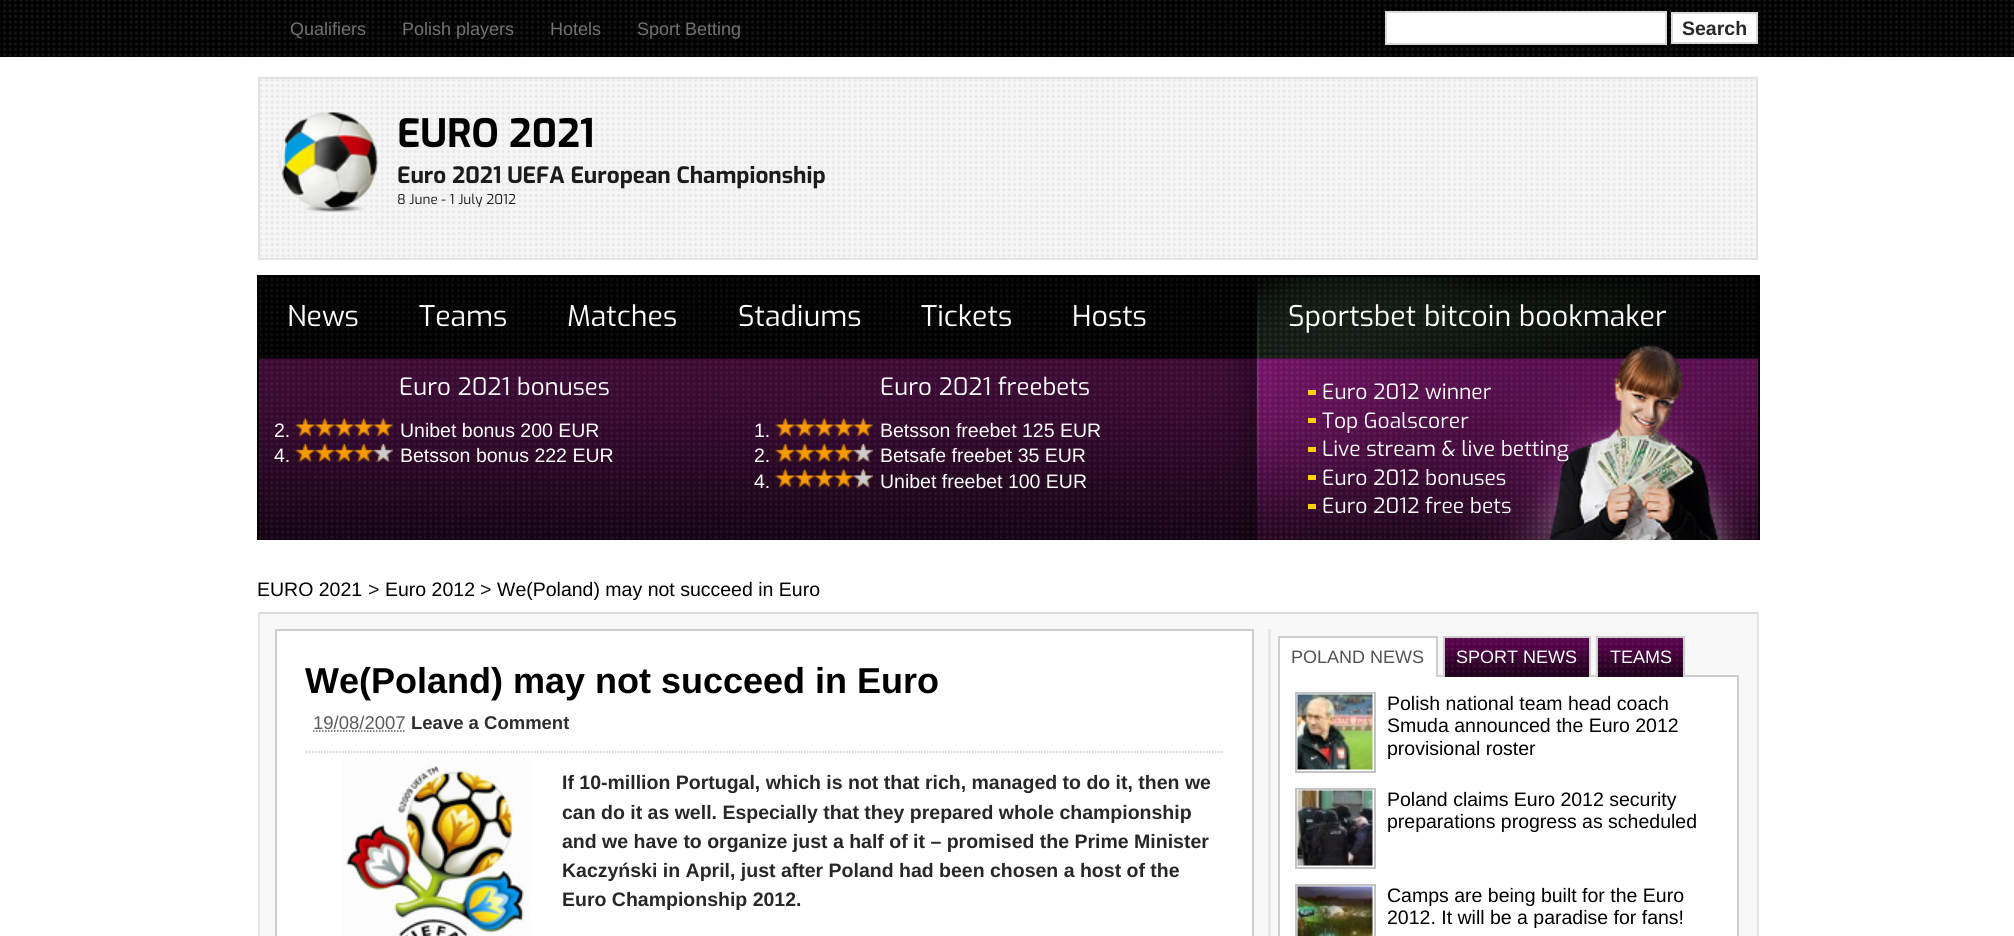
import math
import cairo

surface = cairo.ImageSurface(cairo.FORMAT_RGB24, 2014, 936)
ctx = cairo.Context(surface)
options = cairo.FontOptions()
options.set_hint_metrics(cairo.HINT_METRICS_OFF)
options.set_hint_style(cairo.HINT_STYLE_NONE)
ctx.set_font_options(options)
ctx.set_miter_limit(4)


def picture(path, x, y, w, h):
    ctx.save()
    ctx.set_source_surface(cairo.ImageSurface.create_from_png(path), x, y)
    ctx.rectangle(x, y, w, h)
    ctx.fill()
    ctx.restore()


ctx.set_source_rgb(1, 1, 1)
ctx.paint()
picture("img1.png", 0, 0, 2014, 57)
ctx.select_font_face("Liberation Sans")
ctx.set_font_size(18)
ctx.set_source_rgb(0.447, 0.447, 0.447)
ctx.move_to(290, 35)
ctx.show_text("Qualifiers")
ctx.move_to(402, 35)
ctx.show_text("Polish players")
ctx.move_to(550, 35)
ctx.show_text("Hotels")
ctx.move_to(637, 35)
ctx.show_text("Sport Betting")
ctx.set_source_rgb(1, 1, 1)
ctx.rectangle(1386, 12, 280, 32)
ctx.fill_preserve()
ctx.set_source_rgb(0.859, 0.859, 0.859)
ctx.stroke()
ctx.set_source_rgb(1, 1, 1)
ctx.rectangle(1672, 13, 85, 30)
ctx.fill_preserve()
ctx.set_source_rgb(0.859, 0.859, 0.859)
ctx.stroke()
ctx.select_font_face("Liberation Sans", cairo.FONT_SLANT_NORMAL, cairo.FONT_WEIGHT_BOLD)
ctx.set_font_size(19.5)
ctx.set_source_rgb(0.153, 0.153, 0.153)
ctx.move_to(1682, 35)
ctx.show_text("Search")
picture("img2.png", 258, 76, 1500, 182)
ctx.rectangle(259, 78, 1498, 181)
ctx.set_source_rgb(0.886, 0.886, 0.886)
ctx.stroke()
picture("img3.png", 279, 112, 101, 113)
ctx.select_font_face("Exo", cairo.FONT_SLANT_NORMAL, cairo.FONT_WEIGHT_BOLD)
ctx.set_font_size(39)
ctx.set_source_rgb(0, 0, 0)
ctx.move_to(397, 147)
ctx.show_text("EURO 2021")
ctx.set_font_size(22.5)
ctx.set_source_rgb(0.106, 0.106, 0.106)
ctx.move_to(397, 183)
ctx.show_text("Euro 2021 UEFA European Championship")
ctx.select_font_face("Exo")
ctx.set_font_size(13.5)
ctx.move_to(397, 204)
ctx.show_text("8 June - 1 July 2012")
picture("img4.png", 259, 277, 1499, 263)
ctx.set_source_rgb(0.008, 0.008, 0.008)
ctx.rectangle(257, 275, 1503, 2)
ctx.fill()
ctx.rectangle(1758, 275, 2, 265)
ctx.fill()
ctx.rectangle(257, 275, 2, 265)
ctx.fill()
ctx.set_font_size(28.5)
ctx.set_source_rgb(1, 1, 1)
ctx.move_to(287, 326)
ctx.show_text("News")
ctx.move_to(419, 326)
ctx.show_text("Teams")
ctx.move_to(567, 326)
ctx.show_text("Matches")
ctx.move_to(738, 326)
ctx.show_text("Stadiums")
ctx.move_to(921, 326)
ctx.show_text("Tickets")
ctx.move_to(1072, 326)
ctx.show_text("Hosts")
ctx.move_to(1288, 326)
ctx.show_text("Sportsbet bitcoin bookmaker")
ctx.set_font_size(24)
ctx.move_to(399, 395)
ctx.show_text("Euro 2021 bonuses")
ctx.select_font_face("Liberation Sans")
ctx.set_font_size(19.5)
ctx.move_to(274, 437)
ctx.show_text("2.")
picture("img5.png", 295, 418, 98, 19)
ctx.move_to(400, 437)
ctx.show_text("Unibet bonus 200 EUR")
ctx.move_to(274, 462)
ctx.show_text("4.")
picture("img6.png", 295, 444, 98, 18)
ctx.move_to(400, 462)
ctx.show_text("Betsson bonus 222 EUR")
ctx.select_font_face("Exo")
ctx.set_font_size(24)
ctx.move_to(880, 395)
ctx.show_text("Euro 2021 freebets")
ctx.select_font_face("Liberation Sans")
ctx.set_font_size(19.5)
ctx.move_to(754, 437)
ctx.show_text("1.")
picture("img7.png", 775, 418, 98, 19)
ctx.move_to(880, 437)
ctx.show_text("Betsson freebet 125 EUR")
ctx.move_to(754, 462)
ctx.show_text("2.")
picture("img8.png", 775, 444, 98, 18)
ctx.move_to(880, 462)
ctx.show_text("Betsafe freebet 35 EUR")
ctx.move_to(754, 488)
ctx.show_text("4.")
picture("img9.png", 775, 469, 98, 19)
ctx.move_to(880, 488)
ctx.show_text("Unibet freebet 100 EUR")
ctx.set_source_rgb(0.973, 0.816, 0)
ctx.rectangle(1308, 390, 8, 5)
ctx.fill()
ctx.select_font_face("Exo")
ctx.set_font_size(21)
ctx.set_source_rgb(1, 1, 1)
ctx.move_to(1322, 399)
ctx.show_text("Euro 2012 winner")
ctx.set_source_rgb(0.973, 0.816, 0)
ctx.rectangle(1308, 418, 8, 5)
ctx.fill()
ctx.set_source_rgb(1, 1, 1)
ctx.move_to(1322, 428)
ctx.show_text("Top Goalscorer")
ctx.set_source_rgb(0.973, 0.816, 0)
ctx.rectangle(1308, 447, 8, 5)
ctx.fill()
ctx.set_source_rgb(1, 1, 1)
ctx.move_to(1322, 456)
ctx.show_text("Live stream & live betting")
ctx.set_source_rgb(0.973, 0.816, 0)
ctx.rectangle(1308, 475, 8, 5)
ctx.fill()
ctx.set_source_rgb(1, 1, 1)
ctx.move_to(1322, 485)
ctx.show_text("Euro 2012 bonuses")
ctx.set_source_rgb(0.973, 0.816, 0)
ctx.rectangle(1308, 504, 8, 5)
ctx.fill()
ctx.set_source_rgb(1, 1, 1)
ctx.move_to(1322, 513)
ctx.show_text("Euro 2012 free bets")
ctx.select_font_face("Liberation Sans")
ctx.set_font_size(19.5)
ctx.set_source_rgb(0, 0, 0)
ctx.move_to(257, 596)
ctx.show_text("EURO 2021")
ctx.set_source_rgb(0.106, 0.106, 0.106)
ctx.move_to(368, 596)
ctx.show_text(">")
ctx.set_source_rgb(0, 0, 0)
ctx.move_to(385, 596)
ctx.show_text("Euro 2012")
ctx.set_source_rgb(0.106, 0.106, 0.106)
ctx.move_to(480, 596)
ctx.show_text(">")
ctx.set_source_rgb(0, 0, 0)
ctx.move_to(497, 596)
ctx.show_text("We(Poland) may not succeed in Euro")
ctx.set_source_rgb(0.894, 0.894, 0.894)
ctx.rectangle(1757, 612, 2, 324)
ctx.fill()
ctx.rectangle(258, 612, 2, 324)
ctx.fill()
ctx.set_source_rgb(0.969, 0.969, 0.969)
ctx.rectangle(260, 614, 1497, 322)
ctx.fill()
ctx.set_source_rgb(0.859, 0.859, 0.859)
ctx.rectangle(260, 612, 1497, 2)
ctx.fill()
ctx.set_source_rgb(1, 1, 1)
ctx.rectangle(276, 630, 977, 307)
ctx.fill_preserve()
ctx.set_source_rgb(0.808, 0.808, 0.808)
ctx.stroke()
ctx.select_font_face("Liberation Sans", cairo.FONT_SLANT_NORMAL, cairo.FONT_WEIGHT_BOLD)
ctx.set_font_size(36)
ctx.set_source_rgb(0, 0, 0)
ctx.move_to(305, 693)
ctx.show_text("We(Poland) may not succeed in Euro")
ctx.new_path()
ctx.move_to(306, 752)
ctx.line_to(1222.5, 752)
ctx.set_source_rgb(0.769, 0.769, 0.769)
ctx.set_line_width(1.5)
ctx.set_dash([1.5, 1.5])
ctx.stroke()
ctx.select_font_face("Liberation Sans")
ctx.set_font_size(18.5)
ctx.set_source_rgb(0.357, 0.357, 0.357)
ctx.move_to(313, 729)
ctx.show_text("19/08/2007")
ctx.new_path()
ctx.move_to(313, 731)
ctx.line_to(405.5, 731)
ctx.stroke()
ctx.select_font_face("Liberation Sans", cairo.FONT_SLANT_NORMAL, cairo.FONT_WEIGHT_BOLD)
ctx.set_source_rgb(0.18, 0.18, 0.18)
ctx.move_to(411, 729)
ctx.show_text("Leave a Comment")
picture("img10.png", 342, 760, 189, 176)
ctx.set_font_size(19.5)
ctx.set_source_rgb(0.153, 0.153, 0.153)
ctx.move_to(562, 789)
ctx.show_text("If 10-million Portugal, which is not that rich, managed to do it, then we")
ctx.move_to(562, 819)
ctx.show_text("can do it as well. Especially that they prepared whole championship")
ctx.move_to(562, 848)
ctx.show_text("and we have to organize just a half of it – promised the Prime Minister")
ctx.move_to(562, 877)
ctx.show_text("Kaczyński in April, just after Poland had been chosen a host of the")
ctx.move_to(562, 906)
ctx.show_text("Euro Championship 2012.")
ctx.set_source_rgb(0.91, 0.91, 0.91)
ctx.rectangle(1268, 629, 3, 307)
ctx.fill()
ctx.set_source_rgb(0.808, 0.808, 0.808)
ctx.rectangle(1438, 675, 301, 2)
ctx.fill()
ctx.set_source_rgb(1, 1, 1)
ctx.rectangle(1280, 638, 156, 39)
ctx.fill()
ctx.select_font_face("Liberation Sans")
ctx.set_font_size(18)
ctx.set_source_rgb(0.322, 0.322, 0.322)
ctx.move_to(1291, 663)
ctx.show_text("POLAND NEWS")
ctx.set_source_rgb(0.808, 0.808, 0.808)
ctx.rectangle(1278, 636, 159, 2)
ctx.fill()
ctx.rectangle(1436, 636, 2, 42)
ctx.fill()
ctx.rectangle(1278, 636, 2, 300)
ctx.fill()
picture("img11.png", 1445, 638, 144, 39)
picture("img12.png", 1598, 638, 85, 39)
ctx.set_source_rgb(1, 1, 1)
ctx.move_to(1456, 663)
ctx.show_text("SPORT NEWS")
ctx.set_source_rgb(0.808, 0.808, 0.808)
ctx.rectangle(1443, 636, 147, 2)
ctx.fill()
ctx.rectangle(1589, 636, 2, 42)
ctx.fill()
ctx.rectangle(1443, 636, 2, 42)
ctx.fill()
ctx.set_source_rgb(1, 1, 1)
ctx.move_to(1610, 663)
ctx.show_text("TEAMS")
ctx.set_source_rgb(0.808, 0.808, 0.808)
ctx.rectangle(1596, 636, 89, 2)
ctx.fill()
ctx.rectangle(1683, 636, 2, 42)
ctx.fill()
ctx.rectangle(1596, 636, 2, 42)
ctx.fill()
ctx.set_source_rgb(1, 1, 1)
ctx.rectangle(1280, 677, 457, 259)
ctx.fill()
ctx.set_source_rgb(0.808, 0.808, 0.808)
ctx.rectangle(1737, 677, 2, 259)
ctx.fill()
ctx.rectangle(1296, 693, 79, 79)
ctx.set_source_rgb(0.769, 0.769, 0.769)
ctx.set_line_width(2)
ctx.set_dash([])
ctx.stroke()
picture("img13.png", 1297, 694, 76, 76)
ctx.set_font_size(19.5)
ctx.set_source_rgb(0, 0, 0)
ctx.move_to(1387, 710)
ctx.show_text("Polish national team head coach")
ctx.move_to(1387, 732)
ctx.show_text("Smuda announced the Euro 2012")
ctx.move_to(1387, 755)
ctx.show_text("provisional roster")
ctx.rectangle(1296, 789, 79, 79)
ctx.set_source_rgb(0.769, 0.769, 0.769)
ctx.stroke()
picture("img14.png", 1297, 790, 76, 76)
ctx.set_source_rgb(0, 0, 0)
ctx.move_to(1387, 806)
ctx.show_text("Poland claims Euro 2012 security")
ctx.move_to(1387, 828)
ctx.show_text("preparations progress as scheduled")
ctx.rectangle(1296, 885, 79, 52)
ctx.set_source_rgb(0.769, 0.769, 0.769)
ctx.stroke()
picture("img15.png", 1297, 886, 76, 50)
ctx.set_source_rgb(0, 0, 0)
ctx.move_to(1387, 902)
ctx.show_text("Camps are being built for the Euro")
ctx.move_to(1387, 924)
ctx.show_text("2012. It will be a paradise for fans!")
surface.write_to_png("page.png")
